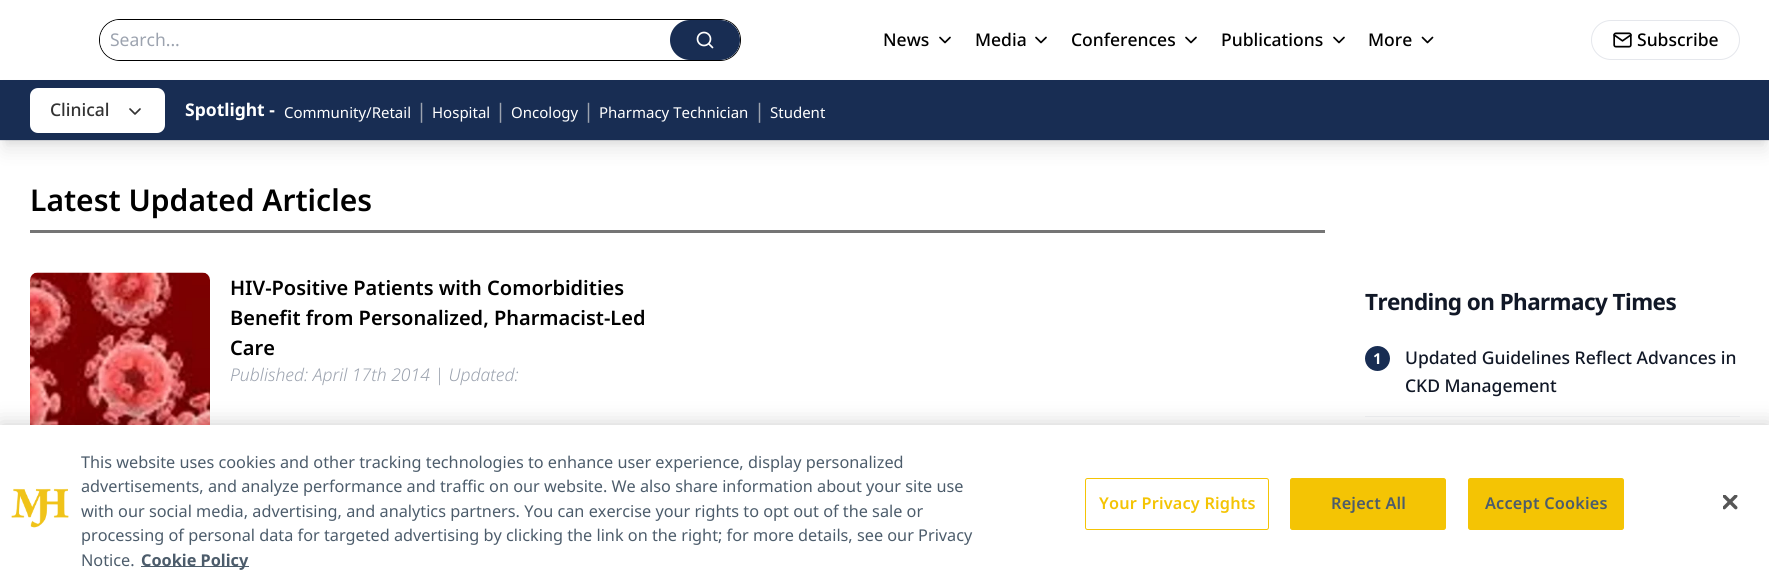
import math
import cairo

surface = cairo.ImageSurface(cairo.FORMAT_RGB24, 1769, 585)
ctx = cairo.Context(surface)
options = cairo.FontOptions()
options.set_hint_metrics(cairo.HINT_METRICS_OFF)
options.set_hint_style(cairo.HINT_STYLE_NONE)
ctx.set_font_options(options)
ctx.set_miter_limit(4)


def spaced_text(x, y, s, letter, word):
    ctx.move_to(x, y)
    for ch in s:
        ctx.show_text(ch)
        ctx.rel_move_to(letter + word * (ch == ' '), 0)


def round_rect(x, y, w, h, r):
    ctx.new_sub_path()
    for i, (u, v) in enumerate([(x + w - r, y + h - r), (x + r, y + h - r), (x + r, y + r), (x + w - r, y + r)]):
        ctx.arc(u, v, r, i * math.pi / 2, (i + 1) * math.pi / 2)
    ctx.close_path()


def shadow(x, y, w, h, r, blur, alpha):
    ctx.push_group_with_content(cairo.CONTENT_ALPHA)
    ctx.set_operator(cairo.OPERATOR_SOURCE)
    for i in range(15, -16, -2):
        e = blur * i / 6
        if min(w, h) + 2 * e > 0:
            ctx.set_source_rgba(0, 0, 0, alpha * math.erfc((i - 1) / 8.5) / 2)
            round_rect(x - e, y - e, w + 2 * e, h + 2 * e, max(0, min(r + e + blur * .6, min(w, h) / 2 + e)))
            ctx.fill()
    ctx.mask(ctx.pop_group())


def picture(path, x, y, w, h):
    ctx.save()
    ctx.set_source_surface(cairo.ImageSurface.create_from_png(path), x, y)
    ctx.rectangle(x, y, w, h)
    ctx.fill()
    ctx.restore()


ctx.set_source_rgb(1, 1, 1)
ctx.paint()
ctx.set_source_rgb(0.898, 0.906, 0.922)
ctx.rectangle(0, 140, 1769, 1)
ctx.fill()
round_rect(99.5, 19.5, 641, 41, 20.5)
ctx.set_source_rgb(0, 0, 0)
ctx.set_line_width(1)
ctx.stroke()
ctx.set_source_rgb(1, 1, 1)
round_rect(100, 20, 640, 40, 20)
ctx.fill()
ctx.select_font_face("Noto Sans")
ctx.set_font_size(17.5)
ctx.set_source_rgb(0.612, 0.639, 0.686)
ctx.move_to(110, 46)
ctx.show_text("Search...")
ctx.set_source_rgb(0.094, 0.176, 0.325)
round_rect(670, 20, 70, 40, 20)
ctx.fill()
ctx.arc(704, 39, 6.5, 0, 2 * math.pi)
ctx.set_source_rgb(1, 1, 1)
ctx.set_line_width(1.7)
ctx.stroke()
ctx.new_path()
ctx.move_to(712.5, 47.5)
ctx.line_to(709, 44)
ctx.set_line_cap(cairo.LINE_CAP_ROUND)
ctx.set_line_join(cairo.LINE_JOIN_ROUND)
ctx.stroke()
ctx.select_font_face("Noto Sans Medium")
ctx.set_source_rgb(0, 0, 0)
ctx.move_to(883, 46)
ctx.show_text("News")
ctx.new_path()
ctx.move_to(940, 37.5)
ctx.line_to(945, 42.5)
ctx.line_to(950, 37.5)
ctx.stroke()
ctx.move_to(975, 46)
ctx.show_text("Media")
ctx.new_path()
ctx.move_to(1036, 37.5)
ctx.line_to(1041, 42.5)
ctx.line_to(1046, 37.5)
ctx.stroke()
ctx.move_to(1071, 46)
ctx.show_text("Conferences")
ctx.new_path()
ctx.move_to(1186, 37.5)
ctx.line_to(1191, 42.5)
ctx.line_to(1196, 37.5)
ctx.stroke()
ctx.move_to(1221, 46)
ctx.show_text("Publications")
ctx.new_path()
ctx.move_to(1334, 37.5)
ctx.line_to(1339, 42.5)
ctx.line_to(1344, 37.5)
ctx.stroke()
ctx.move_to(1368, 46)
ctx.show_text("More")
ctx.new_path()
ctx.move_to(1422.5, 37.5)
ctx.line_to(1427.5, 42.5)
ctx.line_to(1432.5, 37.5)
ctx.stroke()
round_rect(1591.5, 20.5, 148, 39, 19.5)
ctx.set_source_rgb(0.898, 0.906, 0.922)
ctx.set_line_width(1)
ctx.set_line_cap(cairo.LINE_CAP_BUTT)
ctx.set_line_join(cairo.LINE_JOIN_MITER)
ctx.stroke()
picture("img1.png", 1613, 32, 19, 16)
ctx.set_source_rgb(0, 0, 0)
ctx.move_to(1637, 46)
ctx.show_text("Subscribe")
ctx.set_source_rgb(0, 0, 0)
shadow(5, 90, 1760, 50, 0, 4, 0.1)
shadow(4, 96, 1762, 53, 0, 9.5, 0.1)
ctx.set_source_rgb(0.094, 0.176, 0.325)
ctx.rectangle(0, 80, 1769, 60)
ctx.fill()
ctx.set_source_rgb(1, 1, 1)
round_rect(30, 88, 135, 45, 8)
ctx.fill()
ctx.set_source_rgb(0.2, 0.2, 0.2)
ctx.move_to(50, 116)
ctx.show_text("Clinical")
ctx.new_path()
ctx.move_to(130, 109)
ctx.line_to(135, 114)
ctx.line_to(140, 109)
ctx.set_line_width(1.7)
ctx.set_line_cap(cairo.LINE_CAP_ROUND)
ctx.set_line_join(cairo.LINE_JOIN_ROUND)
ctx.stroke()
ctx.select_font_face("Noto Sans", cairo.FONT_SLANT_NORMAL, cairo.FONT_WEIGHT_BOLD)
ctx.set_source_rgb(1, 1, 1)
ctx.move_to(185, 116)
ctx.show_text("Spotlight -")
ctx.select_font_face("Noto Sans")
ctx.set_font_size(15)
ctx.move_to(284, 118)
ctx.show_text("Community/Retail")
ctx.set_font_size(20)
ctx.set_source_rgb(0.612, 0.639, 0.686)
ctx.move_to(416, 118)
ctx.show_text("|")
ctx.set_font_size(15)
ctx.set_source_rgb(1, 1, 1)
ctx.move_to(432, 118)
ctx.show_text("Hospital")
ctx.set_font_size(20)
ctx.set_source_rgb(0.612, 0.639, 0.686)
ctx.move_to(495, 118)
ctx.show_text("|")
ctx.set_font_size(15)
ctx.set_source_rgb(1, 1, 1)
ctx.move_to(511, 118)
ctx.show_text("Oncology")
ctx.set_font_size(20)
ctx.set_source_rgb(0.612, 0.639, 0.686)
ctx.move_to(583, 118)
ctx.show_text("|")
ctx.set_font_size(15)
ctx.set_source_rgb(1, 1, 1)
ctx.move_to(599, 118)
ctx.show_text("Pharmacy Technician")
ctx.set_font_size(20)
ctx.set_source_rgb(0.612, 0.639, 0.686)
ctx.move_to(754, 118)
ctx.show_text("|")
ctx.set_font_size(15)
ctx.set_source_rgb(1, 1, 1)
ctx.move_to(770, 118)
ctx.show_text("Student")
ctx.set_source_rgb(0.459, 0.459, 0.459)
ctx.rectangle(30, 230, 1295, 3)
ctx.fill()
ctx.select_font_face("Noto Sans SemiBold")
ctx.set_font_size(30)
ctx.set_source_rgb(0, 0, 0)
ctx.move_to(30, 211)
ctx.show_text("Latest Updated Articles")
picture("img2.png", 30, 272, 180, 153)
ctx.set_font_size(20)
ctx.move_to(230, 295)
ctx.show_text("HIV-Positive Patients with Comorbidities")
ctx.move_to(230, 325)
ctx.show_text("Benefit from Personalized, Pharmacist-Led")
ctx.move_to(230, 355)
ctx.show_text("Care")
ctx.select_font_face("Noto Sans Light", cairo.FONT_SLANT_ITALIC)
ctx.set_font_size(17.5)
ctx.set_source_rgb(0.612, 0.639, 0.686)
ctx.move_to(230, 381)
ctx.show_text("Published: April 17th 2014 | Updated:")
ctx.select_font_face("Noto Sans", cairo.FONT_SLANT_NORMAL, cairo.FONT_WEIGHT_BOLD)
ctx.set_font_size(22.5)
ctx.set_source_rgb(0.067, 0.094, 0.153)
spaced_text(1365, 310, "Trending on Pharmacy Times", -0.55, 0)
ctx.set_source_rgb(0.094, 0.176, 0.325)
ctx.new_path()
ctx.arc(1377.5, 358.5, 12.5, 0, 2 * math.pi)
ctx.fill()
ctx.set_font_size(15)
ctx.set_source_rgb(1, 1, 1)
ctx.move_to(1373, 364)
ctx.show_text("1")
ctx.select_font_face("Noto Sans Medium")
ctx.set_font_size(17.5)
ctx.set_source_rgb(0.067, 0.094, 0.153)
ctx.move_to(1405, 364)
ctx.show_text("Updated Guidelines Reflect Advances in")
ctx.move_to(1405, 392)
ctx.show_text("CKD Management")
ctx.set_source_rgb(0.953, 0.957, 0.965)
ctx.rectangle(1365, 416, 375, 1)
ctx.fill()
ctx.set_source_rgb(0, 0, 0)
shadow(0, 425, 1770, 160, 0, 11, 0.2)
ctx.set_source_rgb(1, 1, 1)
ctx.rectangle(0, 425, 1769, 160)
ctx.fill()
picture("img3.png", 11, 488, 58, 40)
ctx.select_font_face("Noto Sans")
ctx.set_font_size(16.25)
ctx.set_source_rgb(0.298, 0.361, 0.42)
ctx.move_to(81, 468)
ctx.show_text("This website uses cookies and other tracking technologies to enhance user experience, display personalized")
ctx.move_to(81, 492)
ctx.show_text("advertisements, and analyze performance and traffic on our website. We also share information about your site use")
ctx.move_to(81, 517)
ctx.show_text("with our social media, advertising, and analytics partners. You can exercise your rights to opt out of the sale or")
ctx.move_to(81, 541)
ctx.show_text("processing of personal data for targeted advertising by clicking the link on the right; for more details, see our Privacy")
ctx.move_to(81, 566)
ctx.show_text("Notice.")
ctx.rectangle(141, 566, 108, 1)
ctx.fill()
ctx.select_font_face("Noto Sans", cairo.FONT_SLANT_NORMAL, cairo.FONT_WEIGHT_BOLD)
ctx.move_to(141, 566)
ctx.show_text("Cookie Policy")
round_rect(1085.5, 478.5, 183, 51, 2)
ctx.set_source_rgb(0.957, 0.769, 0.016)
ctx.set_line_width(1)
ctx.set_line_cap(cairo.LINE_CAP_BUTT)
ctx.set_line_join(cairo.LINE_JOIN_MITER)
ctx.stroke()
ctx.select_font_face("Noto Sans SemiBold")
spaced_text(1099, 509, "Your Privacy Rights", 0.2, 0)
round_rect(1290.5, 478.5, 155, 51, 2)
ctx.fill_preserve()
ctx.stroke()
ctx.set_source_rgb(0.298, 0.361, 0.42)
spaced_text(1331, 509, "Reject All", 0.2, 0)
ctx.set_source_rgb(0.957, 0.769, 0.016)
round_rect(1468.5, 478.5, 155, 51, 2)
ctx.fill_preserve()
ctx.stroke()
ctx.set_source_rgb(0.298, 0.361, 0.42)
spaced_text(1485, 509, "Accept Cookies", 0.2, 0)
picture("img4.png", 1723, 495, 15, 15)
surface.write_to_png("page.png")
